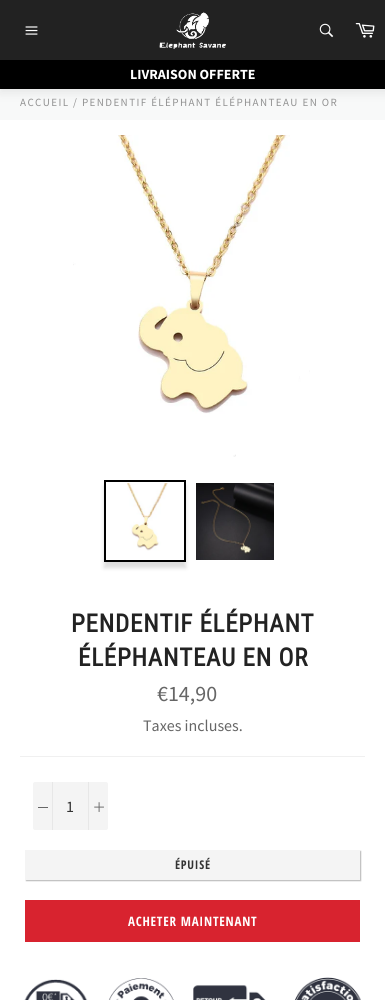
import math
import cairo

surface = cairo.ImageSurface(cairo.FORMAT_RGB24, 385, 1000)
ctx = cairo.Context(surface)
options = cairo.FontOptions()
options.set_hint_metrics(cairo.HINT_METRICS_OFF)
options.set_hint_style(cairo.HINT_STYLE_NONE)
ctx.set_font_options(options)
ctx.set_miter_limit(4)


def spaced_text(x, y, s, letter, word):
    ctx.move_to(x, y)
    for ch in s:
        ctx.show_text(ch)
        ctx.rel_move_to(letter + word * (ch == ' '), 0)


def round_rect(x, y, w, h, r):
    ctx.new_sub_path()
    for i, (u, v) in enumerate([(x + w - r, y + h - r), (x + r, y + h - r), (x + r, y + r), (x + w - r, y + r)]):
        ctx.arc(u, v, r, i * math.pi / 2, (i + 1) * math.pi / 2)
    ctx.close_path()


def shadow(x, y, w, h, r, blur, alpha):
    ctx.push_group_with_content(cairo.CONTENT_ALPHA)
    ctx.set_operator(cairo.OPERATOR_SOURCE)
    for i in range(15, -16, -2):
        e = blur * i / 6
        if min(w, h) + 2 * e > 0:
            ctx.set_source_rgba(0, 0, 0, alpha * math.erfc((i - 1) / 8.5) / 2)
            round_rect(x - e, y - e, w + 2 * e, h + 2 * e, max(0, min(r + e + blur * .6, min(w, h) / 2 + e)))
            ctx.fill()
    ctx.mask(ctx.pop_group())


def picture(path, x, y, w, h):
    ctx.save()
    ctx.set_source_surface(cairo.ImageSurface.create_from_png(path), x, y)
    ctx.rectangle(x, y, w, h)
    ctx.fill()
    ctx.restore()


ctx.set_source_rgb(1, 1, 1)
ctx.paint()
ctx.set_source_rgb(0.969, 0.973, 0.976)
ctx.rectangle(0, 89, 385, 31)
ctx.fill()
ctx.set_source_rgb(0.6, 0.6, 0.6)
shadow(0, 0, 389, 93, 0, 5, 0.2)
ctx.set_source_rgb(0.133, 0.133, 0.133)
ctx.rectangle(0, 0, 385, 60)
ctx.fill()
picture("img1.png", 25, 26, 13, 9)
picture("img2.png", 159, 12, 67, 37)
picture("img3.png", 319, 23, 15, 15)
picture("img4.png", 355, 23, 20, 15)
ctx.set_source_rgb(0, 0, 0)
ctx.rectangle(0, 60, 385, 29)
ctx.fill()
ctx.select_font_face("Source Sans Pro", cairo.FONT_SLANT_NORMAL, cairo.FONT_WEIGHT_BOLD)
ctx.set_font_size(14)
ctx.set_source_rgb(1, 1, 1)
ctx.move_to(130, 79)
ctx.show_text("LIVRAISON OFFERTE")
ctx.select_font_face("Source Sans Pro")
ctx.set_font_size(11)
ctx.set_source_rgb(0.573, 0.573, 0.573)
spaced_text(20, 106, "ACCUEIL / PENDENTIF ÉLÉPHANT ÉLÉPHANTEAU EN OR", 1.4, 0)
picture("img5.png", 73, 135, 237, 322)
ctx.save()
ctx.set_fill_rule(cairo.FILL_RULE_EVEN_ODD)
ctx.new_path()
ctx.move_to(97, 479)
ctx.line_to(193, 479)
ctx.line_to(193, 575)
ctx.line_to(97, 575)
ctx.close_path()
ctx.move_to(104, 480)
ctx.line_to(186, 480)
ctx.line_to(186, 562)
ctx.line_to(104, 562)
ctx.close_path()
ctx.clip()
ctx.set_source_rgb(0.78, 0.78, 0.78)
shadow(104, 486, 82, 82, 0, 2, 0.6)
ctx.restore()
ctx.rectangle(105, 481, 80, 80)
ctx.set_source_rgb(0, 0, 0)
ctx.stroke()
picture("img6.png", 127, 483, 41, 68)
picture("img7.png", 196, 483, 78, 77)
ctx.select_font_face("Roboto Condensed", cairo.FONT_SLANT_NORMAL, cairo.FONT_WEIGHT_BOLD)
ctx.set_font_size(25)
ctx.set_source_rgb(0.133, 0.133, 0.133)
spaced_text(71, 632, "PENDENTIF ÉLÉPHANT", 0.75, 0)
spaced_text(78, 666, "ÉLÉPHANTEAU EN OR", 0.75, 0)
ctx.select_font_face("Source Sans Pro")
ctx.set_font_size(22)
ctx.set_source_rgb(0.4, 0.4, 0.4)
ctx.move_to(157, 701)
ctx.show_text("€14,90")
ctx.set_font_size(16)
ctx.move_to(143, 731)
ctx.show_text("Taxes incluses.")
ctx.set_source_rgb(0.941, 0.941, 0.941)
ctx.rectangle(20, 756, 345, 1)
ctx.fill()
ctx.set_source_rgb(0.957, 0.957, 0.957)
round_rect(33, 782, 75, 48, 2)
ctx.fill()
ctx.set_source_rgb(0.906, 0.906, 0.906)
ctx.rectangle(52, 782, 1, 48)
ctx.fill()
ctx.set_source_rgb(0.4, 0.4, 0.4)
ctx.rectangle(38, 807, 10, 1)
ctx.fill()
ctx.set_source_rgb(0.2, 0.2, 0.2)
ctx.move_to(66, 812)
ctx.show_text("1")
ctx.set_source_rgb(0.906, 0.906, 0.906)
ctx.rectangle(88, 782, 1, 48)
ctx.fill()
picture("img8.png", 94, 802, 10, 10)
ctx.set_source_rgb(0, 0, 0)
shadow(26, 851, 335, 30, 0, 0.5, 0.27)
ctx.set_source_rgb(0.957, 0.957, 0.957)
ctx.rectangle(25, 850, 335, 30)
ctx.fill()
ctx.select_font_face("Open Sans Condensed", cairo.FONT_SLANT_NORMAL, cairo.FONT_WEIGHT_BOLD)
ctx.set_font_size(12)
ctx.set_source_rgb(0.2, 0.2, 0.2)
spaced_text(175, 869, "ÉPUISÉ", 0.75, 0)
ctx.set_source_rgb(0.847, 0.137, 0.184)
ctx.rectangle(25, 900, 335, 42)
ctx.fill()
ctx.set_font_size(13)
ctx.set_source_rgb(1, 1, 1)
spaced_text(128, 926, "ACHETER MAINTENANT", 0.75, 0)
picture("img9.png", 24, 977, 337, 23)
surface.write_to_png("page.png")
